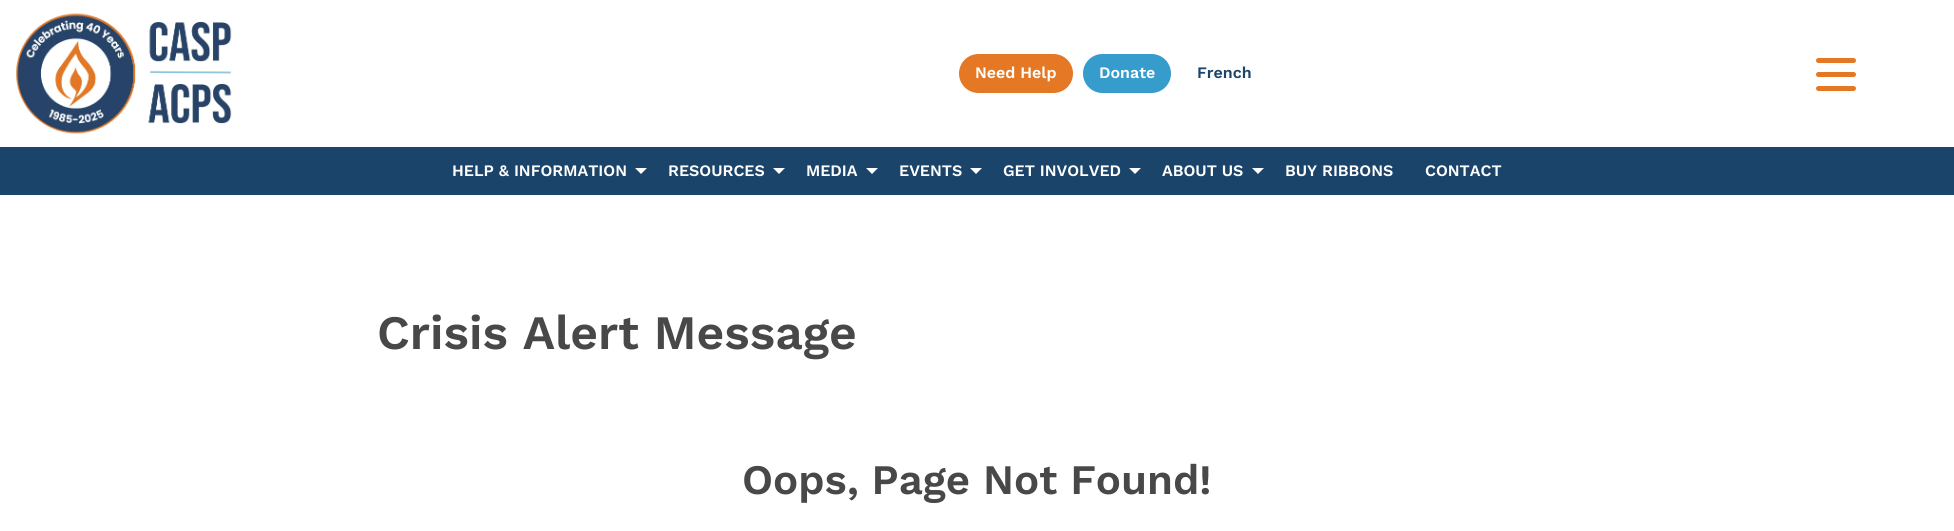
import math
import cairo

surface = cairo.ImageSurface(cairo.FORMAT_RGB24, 1954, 531)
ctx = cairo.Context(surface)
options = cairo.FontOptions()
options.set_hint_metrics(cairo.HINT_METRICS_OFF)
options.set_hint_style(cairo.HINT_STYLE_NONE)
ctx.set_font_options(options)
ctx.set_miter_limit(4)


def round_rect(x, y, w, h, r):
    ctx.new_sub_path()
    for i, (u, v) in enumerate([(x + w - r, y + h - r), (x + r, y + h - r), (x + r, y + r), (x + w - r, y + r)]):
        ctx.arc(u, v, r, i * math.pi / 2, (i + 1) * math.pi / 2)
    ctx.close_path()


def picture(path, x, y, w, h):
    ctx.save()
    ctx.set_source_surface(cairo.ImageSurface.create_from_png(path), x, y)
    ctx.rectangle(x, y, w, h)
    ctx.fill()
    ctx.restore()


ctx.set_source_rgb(1, 1, 1)
ctx.paint()
picture("img1.png", 15, 13, 217, 121)
ctx.set_source_rgb(0.894, 0.471, 0.141)
round_rect(959, 54, 114, 39, 19.5)
ctx.fill()
ctx.select_font_face("Work Sans SemiBold")
ctx.set_font_size(16)
ctx.set_source_rgb(1, 1, 1)
ctx.move_to(975, 78)
ctx.show_text("Need Help")
ctx.set_source_rgb(0.208, 0.612, 0.796)
round_rect(1083, 54, 88, 39, 19.5)
ctx.fill()
ctx.set_source_rgb(1, 1, 1)
ctx.move_to(1099, 78)
ctx.show_text("Donate")
ctx.set_source_rgb(0.106, 0.267, 0.416)
ctx.move_to(1197, 78)
ctx.show_text("French")
ctx.set_source_rgb(0.894, 0.471, 0.141)
round_rect(1816, 86, 40, 5, 2.5)
ctx.fill()
round_rect(1816, 72, 40, 5, 2.5)
ctx.fill()
round_rect(1816, 58, 40, 5, 2.5)
ctx.fill()
ctx.set_source_rgb(0.106, 0.267, 0.416)
ctx.rectangle(0, 147, 1954, 48)
ctx.fill()
ctx.set_source_rgb(1, 1, 1)
ctx.move_to(452, 176)
ctx.show_text("HELP & INFORMATION")
ctx.new_path()
ctx.move_to(635, 168)
ctx.line_to(647, 168)
ctx.line_to(641, 174)
ctx.close_path()
ctx.fill()
ctx.move_to(668, 176)
ctx.show_text("RESOURCES")
ctx.new_path()
ctx.move_to(773, 168)
ctx.line_to(785, 168)
ctx.line_to(779, 174)
ctx.close_path()
ctx.fill()
ctx.move_to(806, 176)
ctx.show_text("MEDIA")
ctx.new_path()
ctx.move_to(866, 168)
ctx.line_to(878, 168)
ctx.line_to(872, 174)
ctx.close_path()
ctx.fill()
ctx.move_to(899, 176)
ctx.show_text("EVENTS")
ctx.new_path()
ctx.move_to(970, 168)
ctx.line_to(982, 168)
ctx.line_to(976, 174)
ctx.close_path()
ctx.fill()
ctx.move_to(1003, 176)
ctx.show_text("GET INVOLVED")
ctx.new_path()
ctx.move_to(1129, 168)
ctx.line_to(1141, 168)
ctx.line_to(1135, 174)
ctx.close_path()
ctx.fill()
ctx.move_to(1162, 176)
ctx.show_text("ABOUT US")
ctx.new_path()
ctx.move_to(1252, 168)
ctx.line_to(1264, 168)
ctx.line_to(1258, 174)
ctx.close_path()
ctx.fill()
ctx.move_to(1285, 176)
ctx.show_text("BUY RIBBONS")
ctx.move_to(1425, 176)
ctx.show_text("CONTACT")
ctx.set_font_size(48)
ctx.set_source_rgb(0.282, 0.282, 0.282)
ctx.move_to(377, 349)
ctx.show_text("Crisis Alert Message")
ctx.set_font_size(42)
ctx.move_to(742, 494)
ctx.show_text("Oops, Page Not Found!")
surface.write_to_png("page.png")
